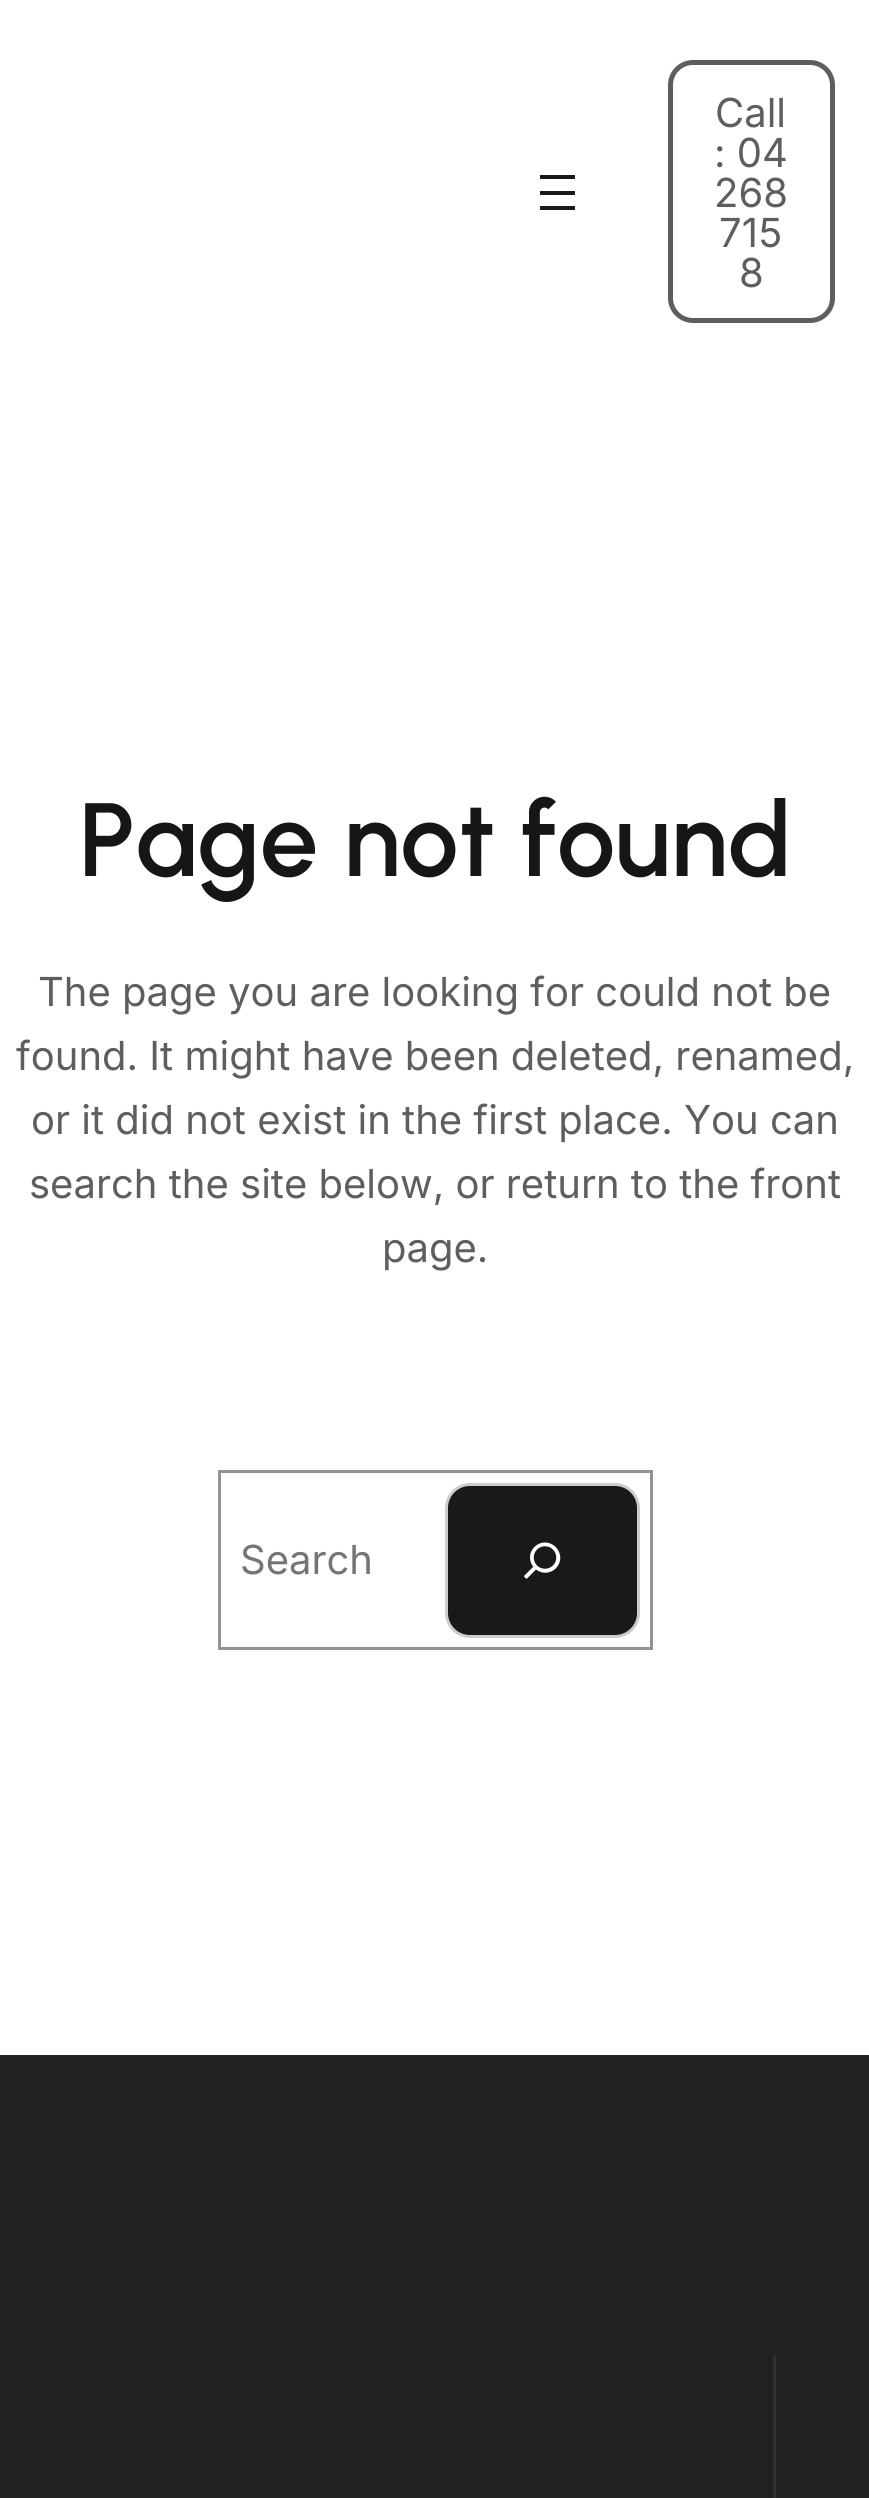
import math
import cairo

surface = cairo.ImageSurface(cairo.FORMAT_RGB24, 869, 2498)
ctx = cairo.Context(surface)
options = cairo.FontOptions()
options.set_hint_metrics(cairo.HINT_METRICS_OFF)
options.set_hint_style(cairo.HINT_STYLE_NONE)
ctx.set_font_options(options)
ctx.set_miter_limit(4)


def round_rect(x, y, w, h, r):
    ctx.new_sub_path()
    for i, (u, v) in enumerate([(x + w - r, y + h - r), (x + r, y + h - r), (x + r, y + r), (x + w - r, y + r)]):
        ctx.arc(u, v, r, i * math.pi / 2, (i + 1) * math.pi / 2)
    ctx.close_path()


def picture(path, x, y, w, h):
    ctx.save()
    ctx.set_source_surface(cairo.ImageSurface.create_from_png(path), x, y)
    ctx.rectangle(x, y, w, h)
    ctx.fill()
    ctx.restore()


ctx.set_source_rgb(1, 1, 1)
ctx.paint()
ctx.set_source_rgb(0.098, 0.098, 0.098)
ctx.rectangle(540, 175, 35, 4)
ctx.fill()
ctx.rectangle(540, 191, 35, 4)
ctx.fill()
ctx.rectangle(540, 206, 35, 4)
ctx.fill()
round_rect(670.5, 62.5, 162, 258, 22.5)
ctx.set_source_rgb(0.369, 0.369, 0.369)
ctx.set_line_width(5)
ctx.stroke()
ctx.select_font_face("Inter")
ctx.set_font_size(40)
ctx.move_to(715, 127)
ctx.show_text("Call")
ctx.move_to(714, 167)
ctx.show_text(": 04")
ctx.move_to(714, 207)
ctx.show_text("268")
ctx.move_to(719, 247)
ctx.show_text("715")
ctx.move_to(739, 287)
ctx.show_text("8")
ctx.select_font_face("Urbanist SemiBold")
ctx.set_font_size(104)
ctx.set_source_rgb(0.086, 0.086, 0.086)
ctx.move_to(79, 876)
ctx.show_text("Page not found")
ctx.select_font_face("Inter")
ctx.set_font_size(40)
ctx.set_source_rgb(0.369, 0.369, 0.369)
ctx.move_to(38, 1006)
ctx.show_text("The page you are looking for could not be")
ctx.move_to(16, 1070)
ctx.show_text("found. It might have been deleted, renamed,")
ctx.move_to(31, 1134)
ctx.show_text("or it did not exist in the first place. You can")
ctx.move_to(29, 1198)
ctx.show_text("search the site below, or return to the front")
ctx.move_to(382, 1262)
ctx.show_text("page.")
ctx.rectangle(219.5, 1471.5, 432, 177)
ctx.set_source_rgb(0.58, 0.58, 0.58)
ctx.set_line_width(3)
ctx.stroke()
ctx.set_source_rgb(0.459, 0.459, 0.459)
ctx.move_to(240, 1574)
ctx.show_text("Search")
ctx.set_source_rgb(0.098, 0.098, 0.098)
round_rect(446.5, 1484.5, 192, 152, 23.5)
ctx.fill_preserve()
ctx.set_source_rgb(0.8, 0.8, 0.8)
ctx.stroke()
picture("img1.png", 523, 1542, 38, 37)
ctx.set_source_rgb(0.129, 0.129, 0.129)
ctx.rectangle(0, 2055, 869, 443)
ctx.fill()
ctx.set_source_rgb(0.192, 0.192, 0.192)
ctx.rectangle(773, 2355, 3, 143)
ctx.fill()
surface.write_to_png("page.png")
